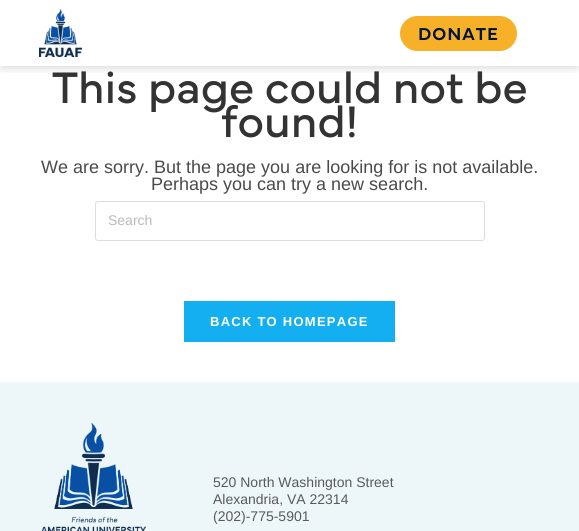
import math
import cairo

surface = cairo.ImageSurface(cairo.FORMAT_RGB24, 579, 531)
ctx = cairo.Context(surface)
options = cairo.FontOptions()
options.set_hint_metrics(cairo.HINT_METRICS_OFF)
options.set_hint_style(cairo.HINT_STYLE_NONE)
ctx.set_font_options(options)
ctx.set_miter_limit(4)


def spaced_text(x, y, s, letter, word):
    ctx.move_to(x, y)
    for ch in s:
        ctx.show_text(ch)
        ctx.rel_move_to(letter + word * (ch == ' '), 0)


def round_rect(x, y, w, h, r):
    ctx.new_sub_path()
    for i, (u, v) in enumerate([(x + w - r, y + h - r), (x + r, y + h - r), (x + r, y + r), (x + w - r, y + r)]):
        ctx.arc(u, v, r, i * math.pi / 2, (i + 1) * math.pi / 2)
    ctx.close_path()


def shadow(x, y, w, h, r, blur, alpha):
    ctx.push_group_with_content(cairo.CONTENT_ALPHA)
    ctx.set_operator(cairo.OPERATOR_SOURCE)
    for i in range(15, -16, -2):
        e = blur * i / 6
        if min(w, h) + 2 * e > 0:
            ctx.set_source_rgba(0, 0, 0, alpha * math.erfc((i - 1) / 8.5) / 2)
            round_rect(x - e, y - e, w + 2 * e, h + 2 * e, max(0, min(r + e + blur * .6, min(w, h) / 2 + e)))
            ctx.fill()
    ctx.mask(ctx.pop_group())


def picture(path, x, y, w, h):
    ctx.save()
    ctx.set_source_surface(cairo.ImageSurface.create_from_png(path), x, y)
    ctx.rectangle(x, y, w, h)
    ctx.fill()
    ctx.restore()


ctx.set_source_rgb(1, 1, 1)
ctx.paint()
ctx.save()
ctx.rectangle(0, 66, 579, 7)
ctx.clip()
ctx.set_source_rgb(0, 0, 0)
shadow(2, 6, 575, 62, 0, 4.5, 0.15)
ctx.restore()
picture("img1.png", 39, 9, 43, 48)
ctx.set_source_rgb(0.961, 0.694, 0.161)
round_rect(400, 16, 117, 35, 17.5)
ctx.fill()
ctx.select_font_face("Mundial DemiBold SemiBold")
ctx.set_font_size(18)
ctx.set_source_rgb(0, 0.078, 0.263)
spaced_text(418, 40, "DONATE", 1, 0)
ctx.select_font_face("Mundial")
ctx.set_font_size(46)
ctx.set_source_rgb(0.2, 0.2, 0.2)
ctx.move_to(52, 103)
ctx.show_text("This page could not be")
ctx.move_to(221, 137)
ctx.show_text("found!")
ctx.select_font_face("Liberation Sans")
ctx.set_font_size(18)
ctx.set_source_rgb(0.29, 0.29, 0.29)
ctx.move_to(41, 173)
ctx.show_text("We are sorry. But the page you are looking for is not available.")
ctx.move_to(151, 190)
ctx.show_text("Perhaps you can try a new search.")
round_rect(95.5, 201.5, 389, 39, 2.5)
ctx.set_source_rgb(0.867, 0.867, 0.867)
ctx.set_line_width(1)
ctx.stroke()
ctx.set_font_size(14)
ctx.set_source_rgb(0.729, 0.729, 0.729)
ctx.move_to(108, 225)
ctx.show_text("Search")
ctx.set_source_rgb(0.075, 0.686, 0.941)
ctx.rectangle(184, 301, 211, 41)
ctx.fill()
ctx.select_font_face("Liberation Sans", cairo.FONT_SLANT_NORMAL, cairo.FONT_WEIGHT_BOLD)
ctx.set_font_size(13)
ctx.set_source_rgb(1, 1, 1)
spaced_text(210, 326, "BACK TO HOMEPAGE", 1.25, 0)
ctx.set_source_rgb(0.929, 0.965, 0.976)
ctx.rectangle(0, 382, 579, 149)
ctx.fill()
picture("img2.png", 41, 423, 105, 108)
ctx.select_font_face("Liberation Sans")
ctx.set_font_size(14)
ctx.set_source_rgb(0.353, 0.353, 0.353)
ctx.move_to(213, 487)
ctx.show_text("520 North Washington Street")
ctx.move_to(213, 504)
ctx.show_text("Alexandria, VA 22314")
ctx.move_to(213, 521)
ctx.show_text("(202)-775-5901")
surface.write_to_png("page.png")
